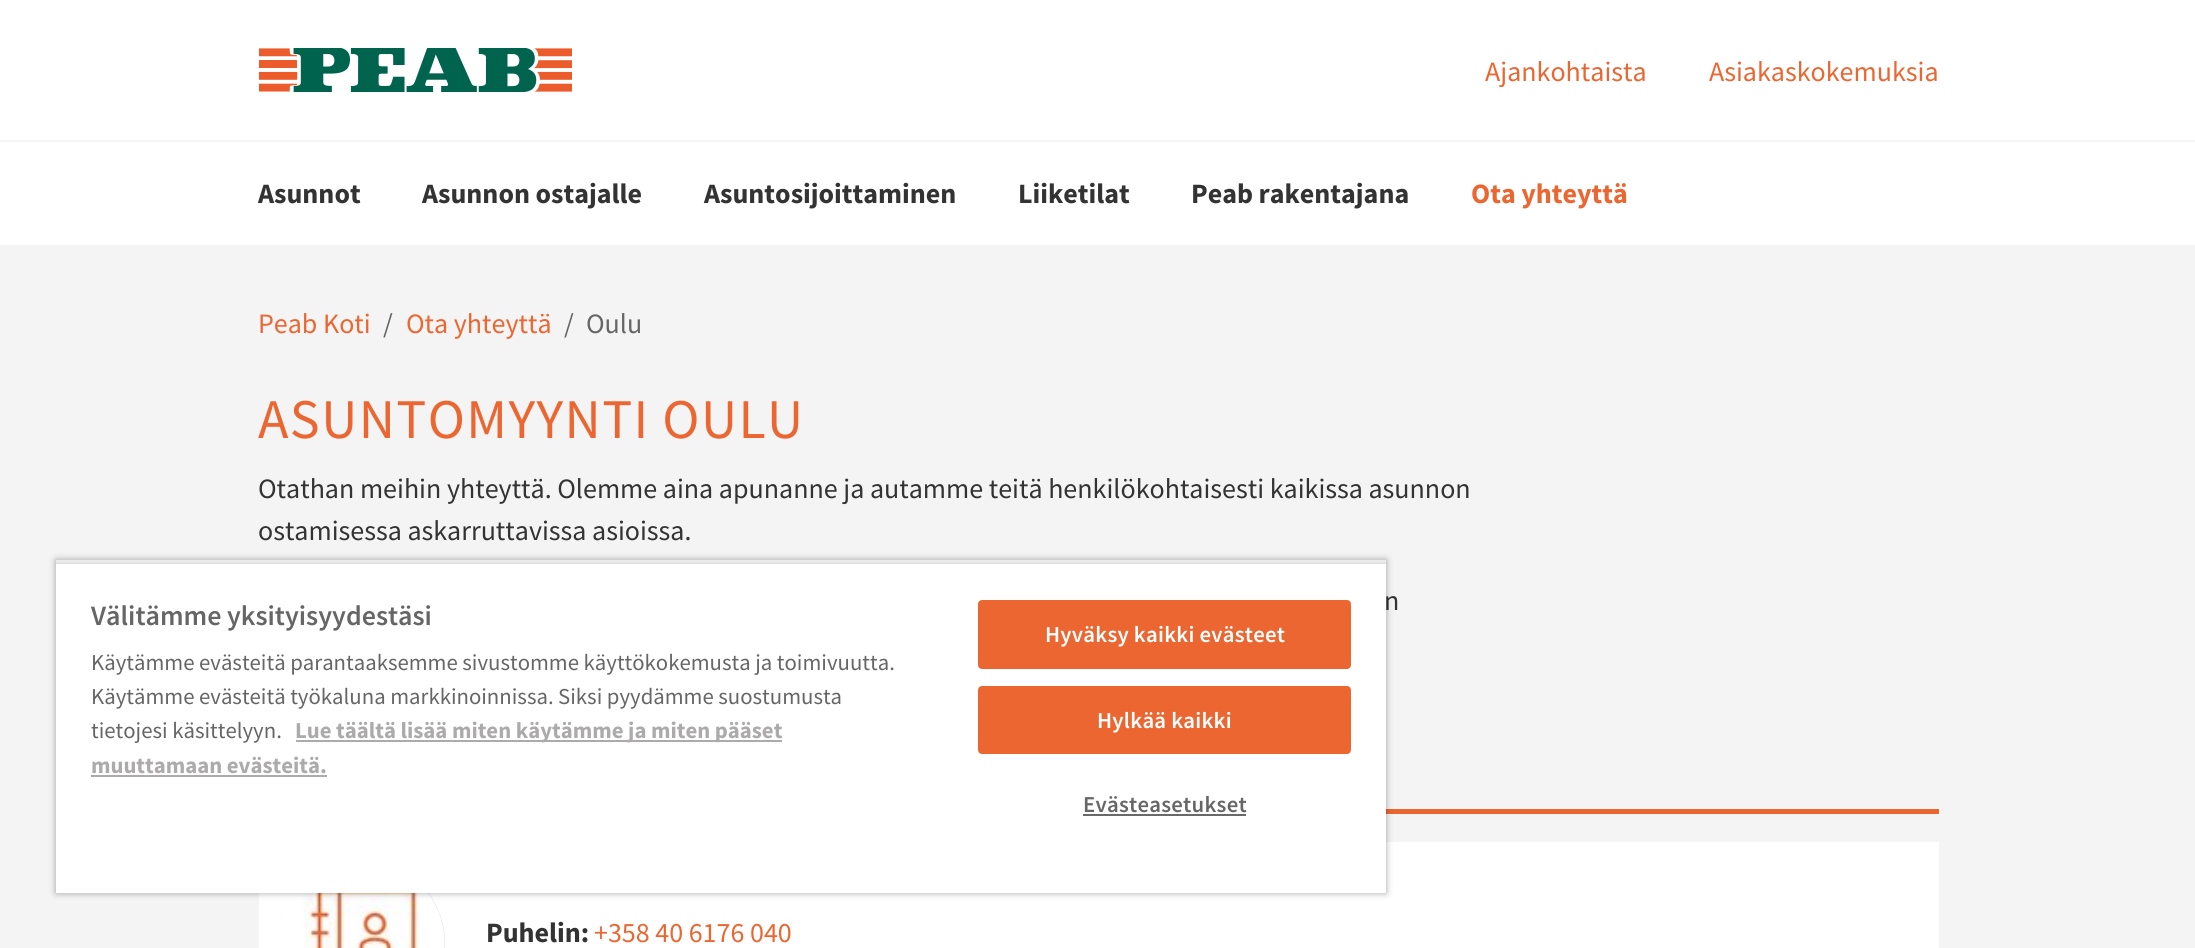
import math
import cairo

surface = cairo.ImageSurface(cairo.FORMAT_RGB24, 2195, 948)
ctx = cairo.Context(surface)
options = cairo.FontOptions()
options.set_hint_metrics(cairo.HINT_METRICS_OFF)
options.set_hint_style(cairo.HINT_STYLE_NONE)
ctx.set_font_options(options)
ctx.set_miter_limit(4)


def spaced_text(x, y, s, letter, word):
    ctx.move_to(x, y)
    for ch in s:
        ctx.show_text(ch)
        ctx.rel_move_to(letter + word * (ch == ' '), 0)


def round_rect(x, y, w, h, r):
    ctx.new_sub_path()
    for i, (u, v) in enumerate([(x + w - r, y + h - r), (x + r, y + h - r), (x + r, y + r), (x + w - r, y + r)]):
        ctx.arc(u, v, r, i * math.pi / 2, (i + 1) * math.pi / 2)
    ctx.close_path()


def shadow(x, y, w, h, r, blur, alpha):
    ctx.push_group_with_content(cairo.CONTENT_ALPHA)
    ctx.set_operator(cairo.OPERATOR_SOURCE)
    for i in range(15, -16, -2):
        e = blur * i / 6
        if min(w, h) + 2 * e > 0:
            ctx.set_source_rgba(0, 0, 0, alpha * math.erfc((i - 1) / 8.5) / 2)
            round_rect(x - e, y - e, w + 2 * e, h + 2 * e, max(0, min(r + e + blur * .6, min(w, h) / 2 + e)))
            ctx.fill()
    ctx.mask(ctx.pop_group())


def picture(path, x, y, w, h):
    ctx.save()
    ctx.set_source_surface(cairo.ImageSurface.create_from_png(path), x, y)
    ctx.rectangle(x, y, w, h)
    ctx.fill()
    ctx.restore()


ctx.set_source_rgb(0.957, 0.957, 0.957)
ctx.paint()
ctx.set_source_rgb(1, 1, 1)
ctx.rectangle(0, 0, 2195, 245)
ctx.fill()
picture("img1.png", 259, 48, 313, 44)
ctx.select_font_face("Source Sans Pro")
ctx.set_font_size(28)
ctx.set_source_rgb(0.922, 0.4, 0.192)
ctx.move_to(1485, 81)
ctx.show_text("Ajankohtaista")
ctx.move_to(1709, 81)
ctx.show_text("Asiakaskokemuksia")
ctx.set_source_rgb(0.957, 0.957, 0.957)
ctx.rectangle(0, 140, 2195, 2)
ctx.fill()
ctx.select_font_face("Source Sans Pro", cairo.FONT_SLANT_NORMAL, cairo.FONT_WEIGHT_BOLD)
ctx.set_source_rgb(0.2, 0.2, 0.2)
ctx.move_to(258, 203)
ctx.show_text("Asunnot")
ctx.move_to(422, 203)
ctx.show_text("Asunnon ostajalle")
ctx.move_to(704, 203)
ctx.show_text("Asuntosijoittaminen")
ctx.move_to(1018, 203)
ctx.show_text("Liiketilat")
ctx.move_to(1191, 203)
ctx.show_text("Peab rakentajana")
ctx.set_source_rgb(0.922, 0.4, 0.192)
ctx.move_to(1471, 203)
ctx.show_text("Ota yhteyttä")
ctx.select_font_face("Source Sans Pro")
ctx.move_to(258, 333)
ctx.show_text("Peab Koti")
ctx.set_source_rgb(0.4, 0.4, 0.4)
ctx.move_to(383, 333)
ctx.show_text("/")
ctx.set_source_rgb(0.922, 0.4, 0.192)
ctx.move_to(406, 333)
ctx.show_text("Ota yhteyttä")
ctx.set_source_rgb(0.4, 0.4, 0.4)
ctx.move_to(564, 333)
ctx.show_text("/")
ctx.move_to(586, 333)
ctx.show_text("Oulu")
ctx.set_font_size(56)
ctx.set_source_rgb(0.922, 0.4, 0.192)
spaced_text(258, 438, "ASUNTOMYYNTI OULU", 1.4, 0)
ctx.set_font_size(28)
ctx.set_source_rgb(0.2, 0.2, 0.2)
ctx.move_to(258, 498)
ctx.show_text("Otathan meihin yhteyttä. Olemme aina apunanne ja autamme teitä henkilökohtaisesti kaikissa asunnon")
ctx.move_to(258, 540)
ctx.show_text("ostamisessa askarruttavissa asioissa.")
ctx.move_to(1384, 610)
ctx.show_text("n")
ctx.set_source_rgb(0.922, 0.4, 0.192)
ctx.rectangle(1386, 809, 553, 5)
ctx.fill()
ctx.set_source_rgb(1, 1, 1)
ctx.rectangle(259, 842, 1680, 106)
ctx.fill()
ctx.set_source_rgb(0.902, 0.902, 0.902)
ctx.arc(361, 943, 84, 0, 2 * math.pi)
ctx.fill()
picture("img2.png", 277, 893, 168, 55)
ctx.select_font_face("Source Sans Pro", cairo.FONT_SLANT_NORMAL, cairo.FONT_WEIGHT_BOLD)
ctx.set_source_rgb(0.2, 0.2, 0.2)
ctx.move_to(486, 942)
ctx.show_text("Puhelin:")
ctx.select_font_face("Source Sans Pro")
ctx.set_source_rgb(0.922, 0.4, 0.192)
ctx.move_to(594, 942)
ctx.show_text("+358 40 6176 040")
ctx.save()
ctx.set_fill_rule(cairo.FILL_RULE_EVEN_ODD)
ctx.new_path()
ctx.move_to(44, 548)
ctx.line_to(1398, 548)
ctx.line_to(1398, 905)
ctx.line_to(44, 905)
ctx.close_path()
ctx.move_to(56, 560)
ctx.line_to(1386, 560)
ctx.line_to(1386, 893)
ctx.line_to(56, 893)
ctx.close_path()
ctx.clip()
ctx.set_source_rgb(0, 0, 0)
shadow(56, 560, 1330, 333, 0, 3.5, 0.35)
ctx.restore()
ctx.save()
ctx.rectangle(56, 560, 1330, 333)
ctx.clip()
ctx.set_source_rgb(0, 0, 0)
shadow(56, 564, 1330, 329, 0, 3.5, 0.2)
ctx.restore()
ctx.set_source_rgb(1, 1, 1)
ctx.rectangle(56, 564, 1330, 329)
ctx.fill()
ctx.select_font_face("Source Sans Pro SemiBold")
ctx.set_source_rgb(0.4, 0.4, 0.4)
ctx.move_to(91, 625)
ctx.show_text("Välitämme yksityisyydestäsi")
ctx.select_font_face("Source Sans Pro")
ctx.set_font_size(22.75)
ctx.move_to(91, 670)
ctx.show_text("Käytämme evästeitä parantaaksemme sivustomme käyttökokemusta ja toimivuutta.")
ctx.move_to(91, 704)
ctx.show_text("Käytämme evästeitä työkaluna markkinoinnissa. Siksi pyydämme suostumusta")
ctx.move_to(91, 738)
ctx.show_text("tietojesi käsittelyyn.")
ctx.set_source_rgb(0.675, 0.667, 0.667)
ctx.rectangle(296, 740, 486, 2)
ctx.fill()
ctx.select_font_face("Source Sans Pro", cairo.FONT_SLANT_NORMAL, cairo.FONT_WEIGHT_BOLD)
ctx.move_to(295, 738)
ctx.show_text("Lue täältä lisää miten käytämme ja miten pääset")
ctx.move_to(91, 773)
ctx.show_text("muuttamaan evästeitä.")
ctx.rectangle(91, 775, 236, 2)
ctx.fill()
ctx.set_source_rgb(0.922, 0.4, 0.192)
round_rect(979, 601, 371, 67, 3)
ctx.fill_preserve()
ctx.stroke()
ctx.select_font_face("Source Sans Pro SemiBold")
ctx.set_source_rgb(1, 1, 1)
spaced_text(1045, 642, "Hyväksy kaikki evästeet", 0.25, 0)
ctx.set_source_rgb(0.922, 0.4, 0.192)
round_rect(979, 687, 371, 66, 3)
ctx.fill_preserve()
ctx.stroke()
ctx.set_source_rgb(1, 1, 1)
spaced_text(1097, 728, "Hylkää kaikki", 0.25, 0)
ctx.set_source_rgb(0.4, 0.4, 0.4)
spaced_text(1083, 812, "Evästeasetukset", 0.25, 0)
ctx.set_source_rgb(0.412, 0.412, 0.412)
ctx.rectangle(1083, 814, 163, 2)
ctx.fill()
surface.write_to_png("page.png")
